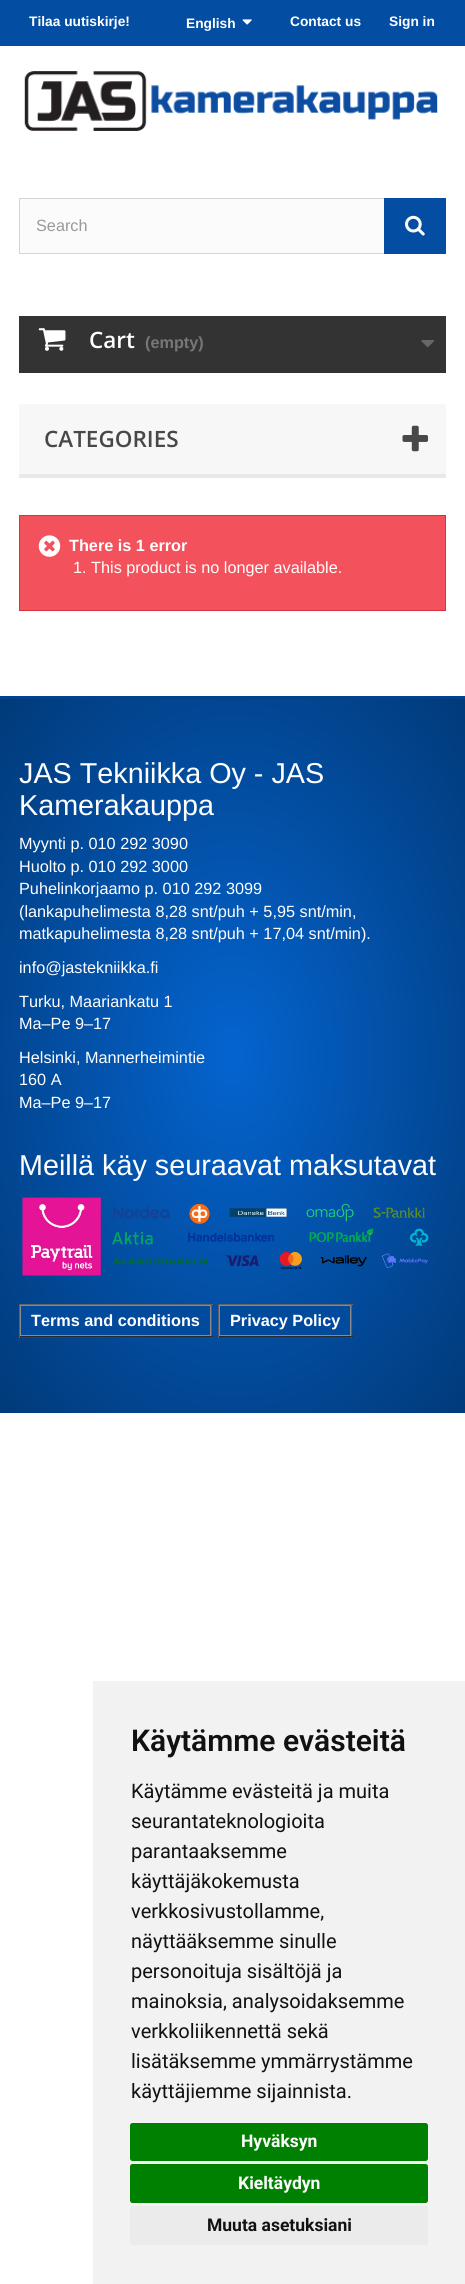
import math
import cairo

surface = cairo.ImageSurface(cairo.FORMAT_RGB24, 465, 2284)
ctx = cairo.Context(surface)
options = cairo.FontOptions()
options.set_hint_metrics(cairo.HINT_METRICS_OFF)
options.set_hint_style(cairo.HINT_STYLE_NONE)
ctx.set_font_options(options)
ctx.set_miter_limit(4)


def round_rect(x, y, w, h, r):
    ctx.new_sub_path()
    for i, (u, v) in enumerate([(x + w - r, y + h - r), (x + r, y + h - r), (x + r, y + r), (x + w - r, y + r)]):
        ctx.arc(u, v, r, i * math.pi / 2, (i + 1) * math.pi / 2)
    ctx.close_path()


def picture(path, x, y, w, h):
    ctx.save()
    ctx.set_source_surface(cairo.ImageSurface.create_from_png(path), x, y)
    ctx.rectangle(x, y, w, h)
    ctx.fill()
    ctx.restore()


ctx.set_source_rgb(1, 1, 1)
ctx.paint()
ctx.set_source_rgb(0.012, 0.306, 0.635)
ctx.rectangle(0, 0, 465, 46)
ctx.fill()
ctx.select_font_face("Liberation Sans", cairo.FONT_SLANT_NORMAL, cairo.FONT_WEIGHT_BOLD)
ctx.set_font_size(13.75)
ctx.set_source_rgb(1, 1, 1)
ctx.move_to(29, 26)
ctx.show_text("Tilaa uutiskirje!")
ctx.move_to(186, 28)
ctx.show_text("English")
picture("img1.png", 242, 19, 10, 6)
ctx.move_to(290, 26)
ctx.show_text("Contact us")
ctx.move_to(389, 26)
ctx.show_text("Sign in")
picture("img2.png", 24, 71, 414, 60)
ctx.set_source_rgb(0.984, 0.984, 0.984)
ctx.rectangle(20, 199, 364, 54)
ctx.fill()
ctx.rectangle(19.5, 198.5, 426, 55)
ctx.set_source_rgb(0.839, 0.831, 0.831)
ctx.set_line_width(1)
ctx.stroke()
ctx.select_font_face("Liberation Sans")
ctx.set_font_size(16.25)
ctx.set_source_rgb(0.6, 0.6, 0.6)
ctx.move_to(36, 231)
ctx.show_text("Search")
ctx.set_source_rgb(0.012, 0.306, 0.635)
ctx.rectangle(384, 198, 62, 56)
ctx.fill()
picture("img3.png", 405, 215, 20, 21)
ctx.set_source_rgb(0.2, 0.2, 0.2)
ctx.rectangle(19, 316, 427, 57)
ctx.fill()
picture("img4.png", 38, 328, 28, 23)
ctx.select_font_face("Open Sans SemiBold")
ctx.set_font_size(22.5)
ctx.set_source_rgb(1, 1, 1)
ctx.move_to(89, 348)
ctx.show_text("Cart")
ctx.select_font_face("Liberation Sans", cairo.FONT_SLANT_NORMAL, cairo.FONT_WEIGHT_BOLD)
ctx.set_font_size(16.25)
ctx.set_source_rgb(0.467, 0.467, 0.467)
ctx.move_to(145, 348)
ctx.show_text("(empty)")
picture("img5.png", 421, 340, 13, 8)
ctx.set_source_rgb(0.965, 0.965, 0.965)
ctx.rectangle(19, 404, 427, 70)
ctx.fill()
ctx.set_source_rgb(0.914, 0.914, 0.914)
ctx.rectangle(19, 474, 427, 4)
ctx.fill()
ctx.select_font_face("Open Sans SemiBold")
ctx.set_font_size(22.5)
ctx.set_source_rgb(0.282, 0.282, 0.282)
ctx.move_to(44, 447)
ctx.show_text("CATEGORIES")
picture("img6.png", 402, 425, 27, 27)
ctx.set_source_rgb(0.953, 0.318, 0.361)
ctx.rectangle(19.5, 515.5, 426, 95)
ctx.fill_preserve()
ctx.set_source_rgb(0.831, 0.196, 0.239)
ctx.stroke()
picture("img7.png", 38, 535, 23, 22)
ctx.select_font_face("Liberation Sans", cairo.FONT_SLANT_NORMAL, cairo.FONT_WEIGHT_BOLD)
ctx.set_font_size(16.25)
ctx.set_source_rgb(1, 1, 1)
ctx.move_to(69, 551)
ctx.show_text("There is 1 error")
ctx.select_font_face("Liberation Sans")
ctx.move_to(73, 573)
ctx.show_text("1. This product is no longer available.")
gradient = cairo.RadialGradient(0, 0, 0, 0, 0, 1)
gradient.set_matrix(cairo.Matrix(1 / 329, 0, 0, 1 / 505, -1 * 233 / 329, -1 * 1056 / 505))
gradient.add_color_stop_rgba(0, 0.016, 0.392, 0.812, 1)
gradient.add_color_stop_rgba(1, 0.004, 0.227, 0.475, 1)
ctx.set_source(gradient)
ctx.rectangle(0, 699, 465, 714)
ctx.fill()
ctx.set_source_rgb(0.004, 0.259, 0.545)
ctx.rectangle(0, 696, 465, 3)
ctx.fill()
ctx.set_font_size(28.75)
ctx.set_source_rgb(1, 1, 1)
ctx.move_to(19, 783)
ctx.show_text("JAS Tekniikka Oy - JAS")
ctx.move_to(19, 815)
ctx.show_text("Kamerakauppa")
ctx.set_font_size(16.25)
ctx.move_to(19, 849)
ctx.show_text("Myynti p. 010 292 3090")
ctx.move_to(19, 872)
ctx.show_text("Huolto p. 010 292 3000")
ctx.move_to(19, 894)
ctx.show_text("Puhelinkorjaamo p. 010 292 3099")
ctx.move_to(19, 917)
ctx.show_text("(lankapuhelimesta 8,28 snt/puh + 5,95 snt/min,")
ctx.move_to(19, 939)
ctx.show_text("matkapuhelimesta 8,28 snt/puh + 17,04 snt/min).")
ctx.move_to(19, 973)
ctx.show_text("info@jastekniikka.fi")
ctx.move_to(19, 1007)
ctx.show_text("Turku, Maariankatu 1")
ctx.move_to(19, 1029)
ctx.show_text("Ma–Pe 9–17")
ctx.move_to(19, 1063)
ctx.show_text("Helsinki, Mannerheimintie")
ctx.move_to(19, 1085)
ctx.show_text("160 A")
ctx.move_to(19, 1108)
ctx.show_text("Ma–Pe 9–17")
ctx.set_font_size(28.75)
ctx.move_to(19, 1175)
ctx.show_text("Meillä käy seuraavat maksutavat")
picture("img8.png", 22, 1197, 407, 79)
ctx.set_source_rgb(0.008, 0.294, 0.612)
ctx.rectangle(20, 1305, 193, 33)
ctx.fill()
ctx.set_source_rgb(0.4, 0.4, 0.4)
ctx.rectangle(19, 1304, 194, 1)
ctx.fill()
ctx.set_source_rgb(0.373, 0.373, 0.373)
ctx.rectangle(211, 1304, 1, 34)
ctx.fill()
ctx.set_source_rgb(0.161, 0.161, 0.161)
ctx.rectangle(19, 1336, 194, 1)
ctx.fill()
ctx.set_source_rgb(0.373, 0.373, 0.373)
ctx.rectangle(19, 1304, 1, 34)
ctx.fill()
ctx.rectangle(20.5, 1305.5, 190, 30)
ctx.set_source_rgb(0.545, 0.541, 0.541)
ctx.stroke()
ctx.select_font_face("Liberation Sans", cairo.FONT_SLANT_NORMAL, cairo.FONT_WEIGHT_BOLD)
ctx.set_font_size(16.25)
ctx.set_source_rgb(1, 1, 1)
ctx.move_to(31, 1326)
ctx.show_text("Terms and conditions")
ctx.set_source_rgb(0.008, 0.294, 0.612)
ctx.rectangle(219, 1305, 134, 33)
ctx.fill()
ctx.set_source_rgb(0.4, 0.4, 0.4)
ctx.rectangle(218, 1304, 135, 1)
ctx.fill()
ctx.set_source_rgb(0.373, 0.373, 0.373)
ctx.rectangle(351, 1304, 1, 34)
ctx.fill()
ctx.set_source_rgb(0.161, 0.161, 0.161)
ctx.rectangle(218, 1336, 135, 1)
ctx.fill()
ctx.set_source_rgb(0.373, 0.373, 0.373)
ctx.rectangle(218, 1304, 1, 34)
ctx.fill()
ctx.rectangle(219.5, 1305.5, 131, 30)
ctx.set_source_rgb(0.545, 0.541, 0.541)
ctx.stroke()
ctx.set_source_rgb(1, 1, 1)
ctx.move_to(230, 1326)
ctx.show_text("Privacy Policy")
ctx.set_source_rgb(0.949, 0.949, 0.949)
ctx.rectangle(93, 1681, 372, 603)
ctx.fill()
ctx.select_font_face("Roboto SemiBold")
ctx.set_font_size(30)
ctx.set_source_rgb(0.067, 0.067, 0.067)
ctx.move_to(131, 1751)
ctx.show_text("Käytämme evästeitä")
ctx.select_font_face("Roboto")
ctx.set_font_size(20)
ctx.move_to(131, 1798)
ctx.show_text("Käytämme evästeitä ja muita")
ctx.move_to(131, 1828)
ctx.show_text("seurantateknologioita")
ctx.move_to(131, 1858)
ctx.show_text("parantaaksemme")
ctx.move_to(131, 1888)
ctx.show_text("käyttäjäkokemusta")
ctx.move_to(131, 1918)
ctx.show_text("verkkosivustollamme,")
ctx.move_to(131, 1948)
ctx.show_text("näyttääksemme sinulle")
ctx.move_to(131, 1978)
ctx.show_text("personoituja sisältöjä ja")
ctx.move_to(131, 2008)
ctx.show_text("mainoksia, analysoidaksemme")
ctx.move_to(131, 2038)
ctx.show_text("verkkoliikennettä sekä")
ctx.move_to(131, 2068)
ctx.show_text("lisätäksemme ymmärrystämme")
ctx.move_to(131, 2098)
ctx.show_text("käyttäjiemme sijainnista.")
ctx.set_source_rgb(0, 0.502, 0)
round_rect(130, 2123, 298, 38, 2.5)
ctx.fill()
ctx.select_font_face("Roboto", cairo.FONT_SLANT_NORMAL, cairo.FONT_WEIGHT_BOLD)
ctx.set_font_size(17.5)
ctx.set_source_rgb(1, 1, 1)
ctx.move_to(241, 2147)
ctx.show_text("Hyväksyn")
ctx.set_source_rgb(0, 0.502, 0)
round_rect(130, 2164, 298, 39, 2.5)
ctx.fill()
ctx.set_source_rgb(1, 1, 1)
ctx.move_to(238, 2189)
ctx.show_text("Kieltäydyn")
ctx.set_source_rgb(0.918, 0.918, 0.918)
round_rect(130, 2206, 298, 39, 2.5)
ctx.fill()
ctx.set_source_rgb(0.067, 0.067, 0.067)
ctx.move_to(207, 2231)
ctx.show_text("Muuta asetuksiani")
surface.write_to_png("page.png")
